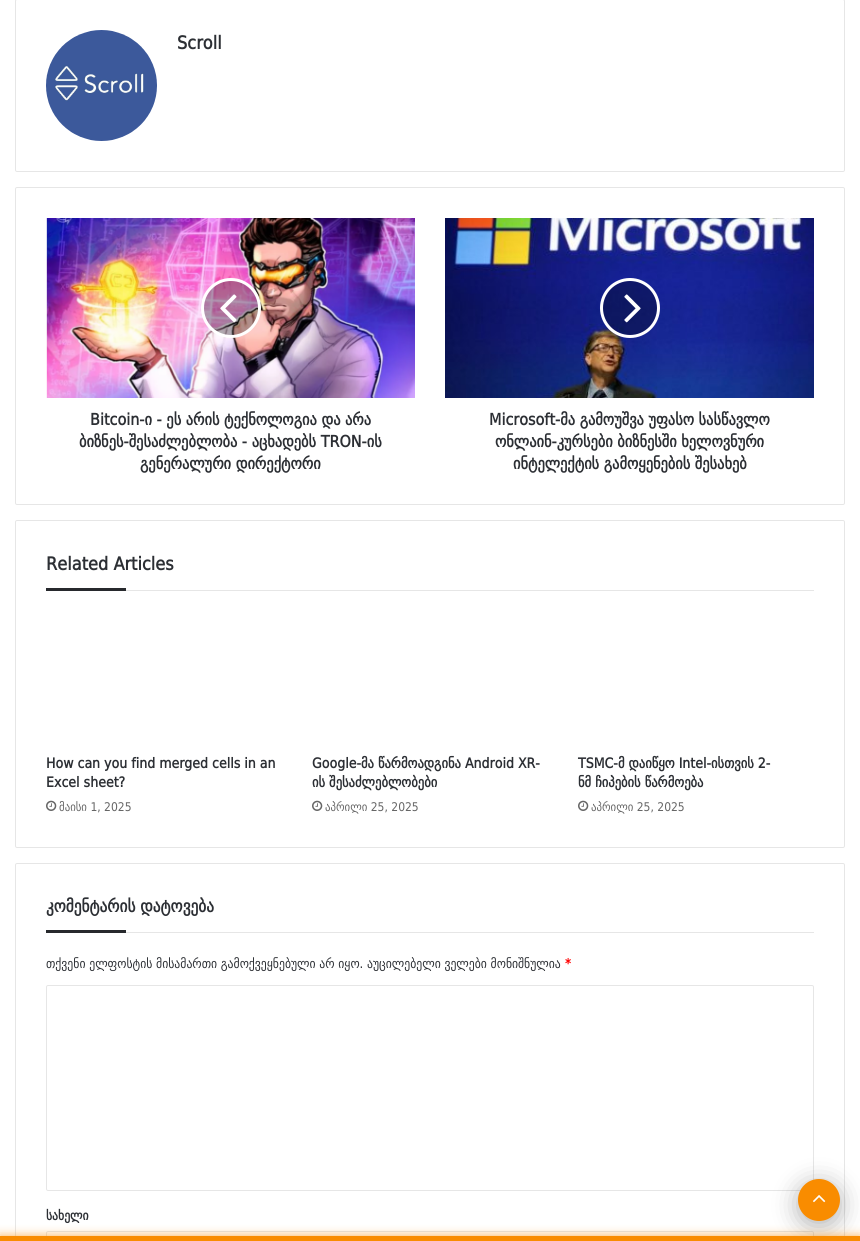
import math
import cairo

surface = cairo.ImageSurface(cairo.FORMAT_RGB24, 860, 1241)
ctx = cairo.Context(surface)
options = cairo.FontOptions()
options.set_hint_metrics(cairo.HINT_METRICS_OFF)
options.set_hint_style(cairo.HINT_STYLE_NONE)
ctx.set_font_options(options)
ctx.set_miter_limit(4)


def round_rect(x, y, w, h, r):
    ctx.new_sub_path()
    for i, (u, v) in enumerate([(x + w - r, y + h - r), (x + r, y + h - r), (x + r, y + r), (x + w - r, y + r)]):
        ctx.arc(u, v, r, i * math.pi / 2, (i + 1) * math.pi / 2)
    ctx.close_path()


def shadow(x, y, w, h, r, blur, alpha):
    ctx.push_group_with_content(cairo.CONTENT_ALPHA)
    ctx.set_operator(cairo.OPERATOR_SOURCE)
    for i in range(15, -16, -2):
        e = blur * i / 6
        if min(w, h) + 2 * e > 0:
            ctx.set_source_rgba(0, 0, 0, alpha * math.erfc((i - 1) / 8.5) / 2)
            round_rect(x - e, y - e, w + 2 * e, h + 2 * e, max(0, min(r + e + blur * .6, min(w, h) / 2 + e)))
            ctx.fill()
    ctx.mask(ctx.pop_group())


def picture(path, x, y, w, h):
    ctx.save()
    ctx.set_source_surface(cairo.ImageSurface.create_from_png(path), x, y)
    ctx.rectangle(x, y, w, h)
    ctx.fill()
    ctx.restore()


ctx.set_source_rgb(1, 1, 1)
ctx.paint()
round_rect(15.5, -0.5, 829, 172, 1.5)
ctx.set_source_rgb(0.902, 0.902, 0.902)
ctx.set_line_width(1)
ctx.stroke()
picture("img1.png", 46, 30, 111, 111)
ctx.select_font_face("DejaVu Sans", cairo.FONT_SLANT_NORMAL, cairo.FONT_WEIGHT_BOLD)
ctx.set_font_size(18)
ctx.set_source_rgb(0.173, 0.184, 0.204)
ctx.move_to(177, 49)
ctx.show_text("Scroll")
round_rect(15.5, 187.5, 829, 317, 1.5)
ctx.set_source_rgb(0.902, 0.902, 0.902)
ctx.stroke()
picture("img2.png", 46, 218, 369, 180)
ctx.set_source_rgba(0, 0, 0, 0.3)
ctx.arc(231, 308, 28.5, 0, 2 * math.pi)
ctx.fill_preserve()
ctx.set_source_rgb(1, 1, 1)
ctx.set_line_width(3)
ctx.stroke()
picture("img3.png", 220, 294, 17, 29)
ctx.set_font_size(16)
ctx.set_source_rgb(0.173, 0.184, 0.204)
ctx.move_to(90, 425)
ctx.show_text("Bitcoin-ი - ეს არის ტექნოლოგია და არა")
ctx.move_to(79, 447)
ctx.show_text("ბიზნეს-შესაძლებლობა - აცხადებს TRON-ის")
ctx.move_to(140, 469)
ctx.show_text("გენერალური დირექტორი")
picture("img4.png", 445, 218, 369, 180)
ctx.set_source_rgba(0, 0, 0, 0.3)
ctx.arc(630, 308, 28.5, 0, 2 * math.pi)
ctx.fill_preserve()
ctx.set_source_rgb(1, 1, 1)
ctx.stroke()
picture("img5.png", 624, 294, 17, 29)
ctx.set_source_rgb(0.173, 0.184, 0.204)
ctx.move_to(489, 425)
ctx.show_text("Microsoft-მა გამოუშვა უფასო სასწავლო")
ctx.move_to(495, 447)
ctx.show_text("ონლაინ-კურსები ბიზნესში ხელოვნური")
ctx.move_to(513, 469)
ctx.show_text("ინტელექტის გამოყენების შესახებ")
round_rect(15.5, 520.5, 829, 327, 1.5)
ctx.set_source_rgb(0.902, 0.902, 0.902)
ctx.set_line_width(1)
ctx.stroke()
ctx.rectangle(126, 590, 688, 1)
ctx.fill()
ctx.set_font_size(18)
ctx.set_source_rgb(0.173, 0.184, 0.204)
ctx.move_to(46, 570)
ctx.show_text("Related Articles")
ctx.set_source_rgb(0.153, 0.161, 0.176)
ctx.rectangle(46, 588, 80, 3)
ctx.fill()
ctx.set_font_size(14)
ctx.set_source_rgb(0.173, 0.184, 0.204)
ctx.move_to(46, 768)
ctx.show_text("How can you find merged cells in an")
ctx.move_to(46, 787)
ctx.show_text("Excel sheet?")
picture("img6.png", 46, 800, 11, 11)
ctx.select_font_face("DejaVu Sans")
ctx.set_font_size(12)
ctx.set_source_rgb(0.4, 0.4, 0.4)
ctx.move_to(59, 811)
ctx.show_text("მაისი 1, 2025")
ctx.select_font_face("DejaVu Sans", cairo.FONT_SLANT_NORMAL, cairo.FONT_WEIGHT_BOLD)
ctx.set_font_size(14)
ctx.set_source_rgb(0.173, 0.184, 0.204)
ctx.move_to(312, 768)
ctx.show_text("Google-მა წარმოადგინა Android XR-")
ctx.move_to(312, 787)
ctx.show_text("ის შესაძლებლობები")
picture("img6.png", 312, 800, 11, 11)
ctx.select_font_face("DejaVu Sans")
ctx.set_font_size(12)
ctx.set_source_rgb(0.4, 0.4, 0.4)
ctx.move_to(325, 811)
ctx.show_text("აპრილი 25, 2025")
ctx.select_font_face("DejaVu Sans", cairo.FONT_SLANT_NORMAL, cairo.FONT_WEIGHT_BOLD)
ctx.set_font_size(14)
ctx.set_source_rgb(0.173, 0.184, 0.204)
ctx.move_to(578, 768)
ctx.show_text("TSMC-მ დაიწყო Intel-ისთვის 2-")
ctx.move_to(578, 787)
ctx.show_text("ნმ ჩიპების წარმოება")
picture("img6.png", 578, 800, 11, 11)
ctx.select_font_face("DejaVu Sans")
ctx.set_font_size(12)
ctx.set_source_rgb(0.4, 0.4, 0.4)
ctx.move_to(591, 811)
ctx.show_text("აპრილი 25, 2025")
round_rect(15.5, 863.5, 829, 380, 1.5)
ctx.set_source_rgb(0.902, 0.902, 0.902)
ctx.stroke()
ctx.rectangle(126, 932, 688, 1)
ctx.fill()
ctx.select_font_face("DejaVu Sans", cairo.FONT_SLANT_NORMAL, cairo.FONT_WEIGHT_BOLD)
ctx.set_font_size(17)
ctx.set_source_rgb(0.173, 0.184, 0.204)
ctx.move_to(46, 912)
ctx.show_text("კომენტარის დატოვება")
ctx.set_source_rgb(0.153, 0.161, 0.176)
ctx.rectangle(46, 930, 80, 3)
ctx.fill()
ctx.select_font_face("DejaVu Sans")
ctx.set_font_size(13)
ctx.set_source_rgb(0.173, 0.184, 0.204)
ctx.move_to(46, 968)
ctx.show_text("თქვენი ელფოსტის მისამართი გამოქვეყნებული არ იყო. აუცილებელი ველები მონიშნულია")
ctx.select_font_face("DejaVu Sans", cairo.FONT_SLANT_NORMAL, cairo.FONT_WEIGHT_BOLD)
ctx.set_source_rgb(1, 0, 0)
ctx.move_to(565, 968)
ctx.show_text("*")
round_rect(46.5, 985.5, 767, 205, 1.5)
ctx.set_source_rgb(0.902, 0.902, 0.902)
ctx.stroke()
ctx.set_source_rgb(0.173, 0.184, 0.204)
ctx.move_to(46, 1220)
ctx.show_text("სახელი")
round_rect(46.5, 1231.5, 767, 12, 1.5)
ctx.set_source_rgb(0.902, 0.902, 0.902)
ctx.stroke()
ctx.set_source_rgb(0, 0, 0)
shadow(798, 1184, 42, 42, 21, 12.5, 0.3)
ctx.set_source_rgb(0.973, 0.549, 0)
ctx.arc(819, 1200, 21, 0, 2 * math.pi)
ctx.fill()
picture("img7.png", 813, 1195, 13, 8)
ctx.set_source_rgb(0.973, 0.549, 0)
shadow(0, 1236, 860, 5, 0, 5, 0.7)
ctx.set_source_rgb(0.973, 0.549, 0)
ctx.rectangle(0, 1236, 860, 5)
ctx.fill()
surface.write_to_png("page.png")
